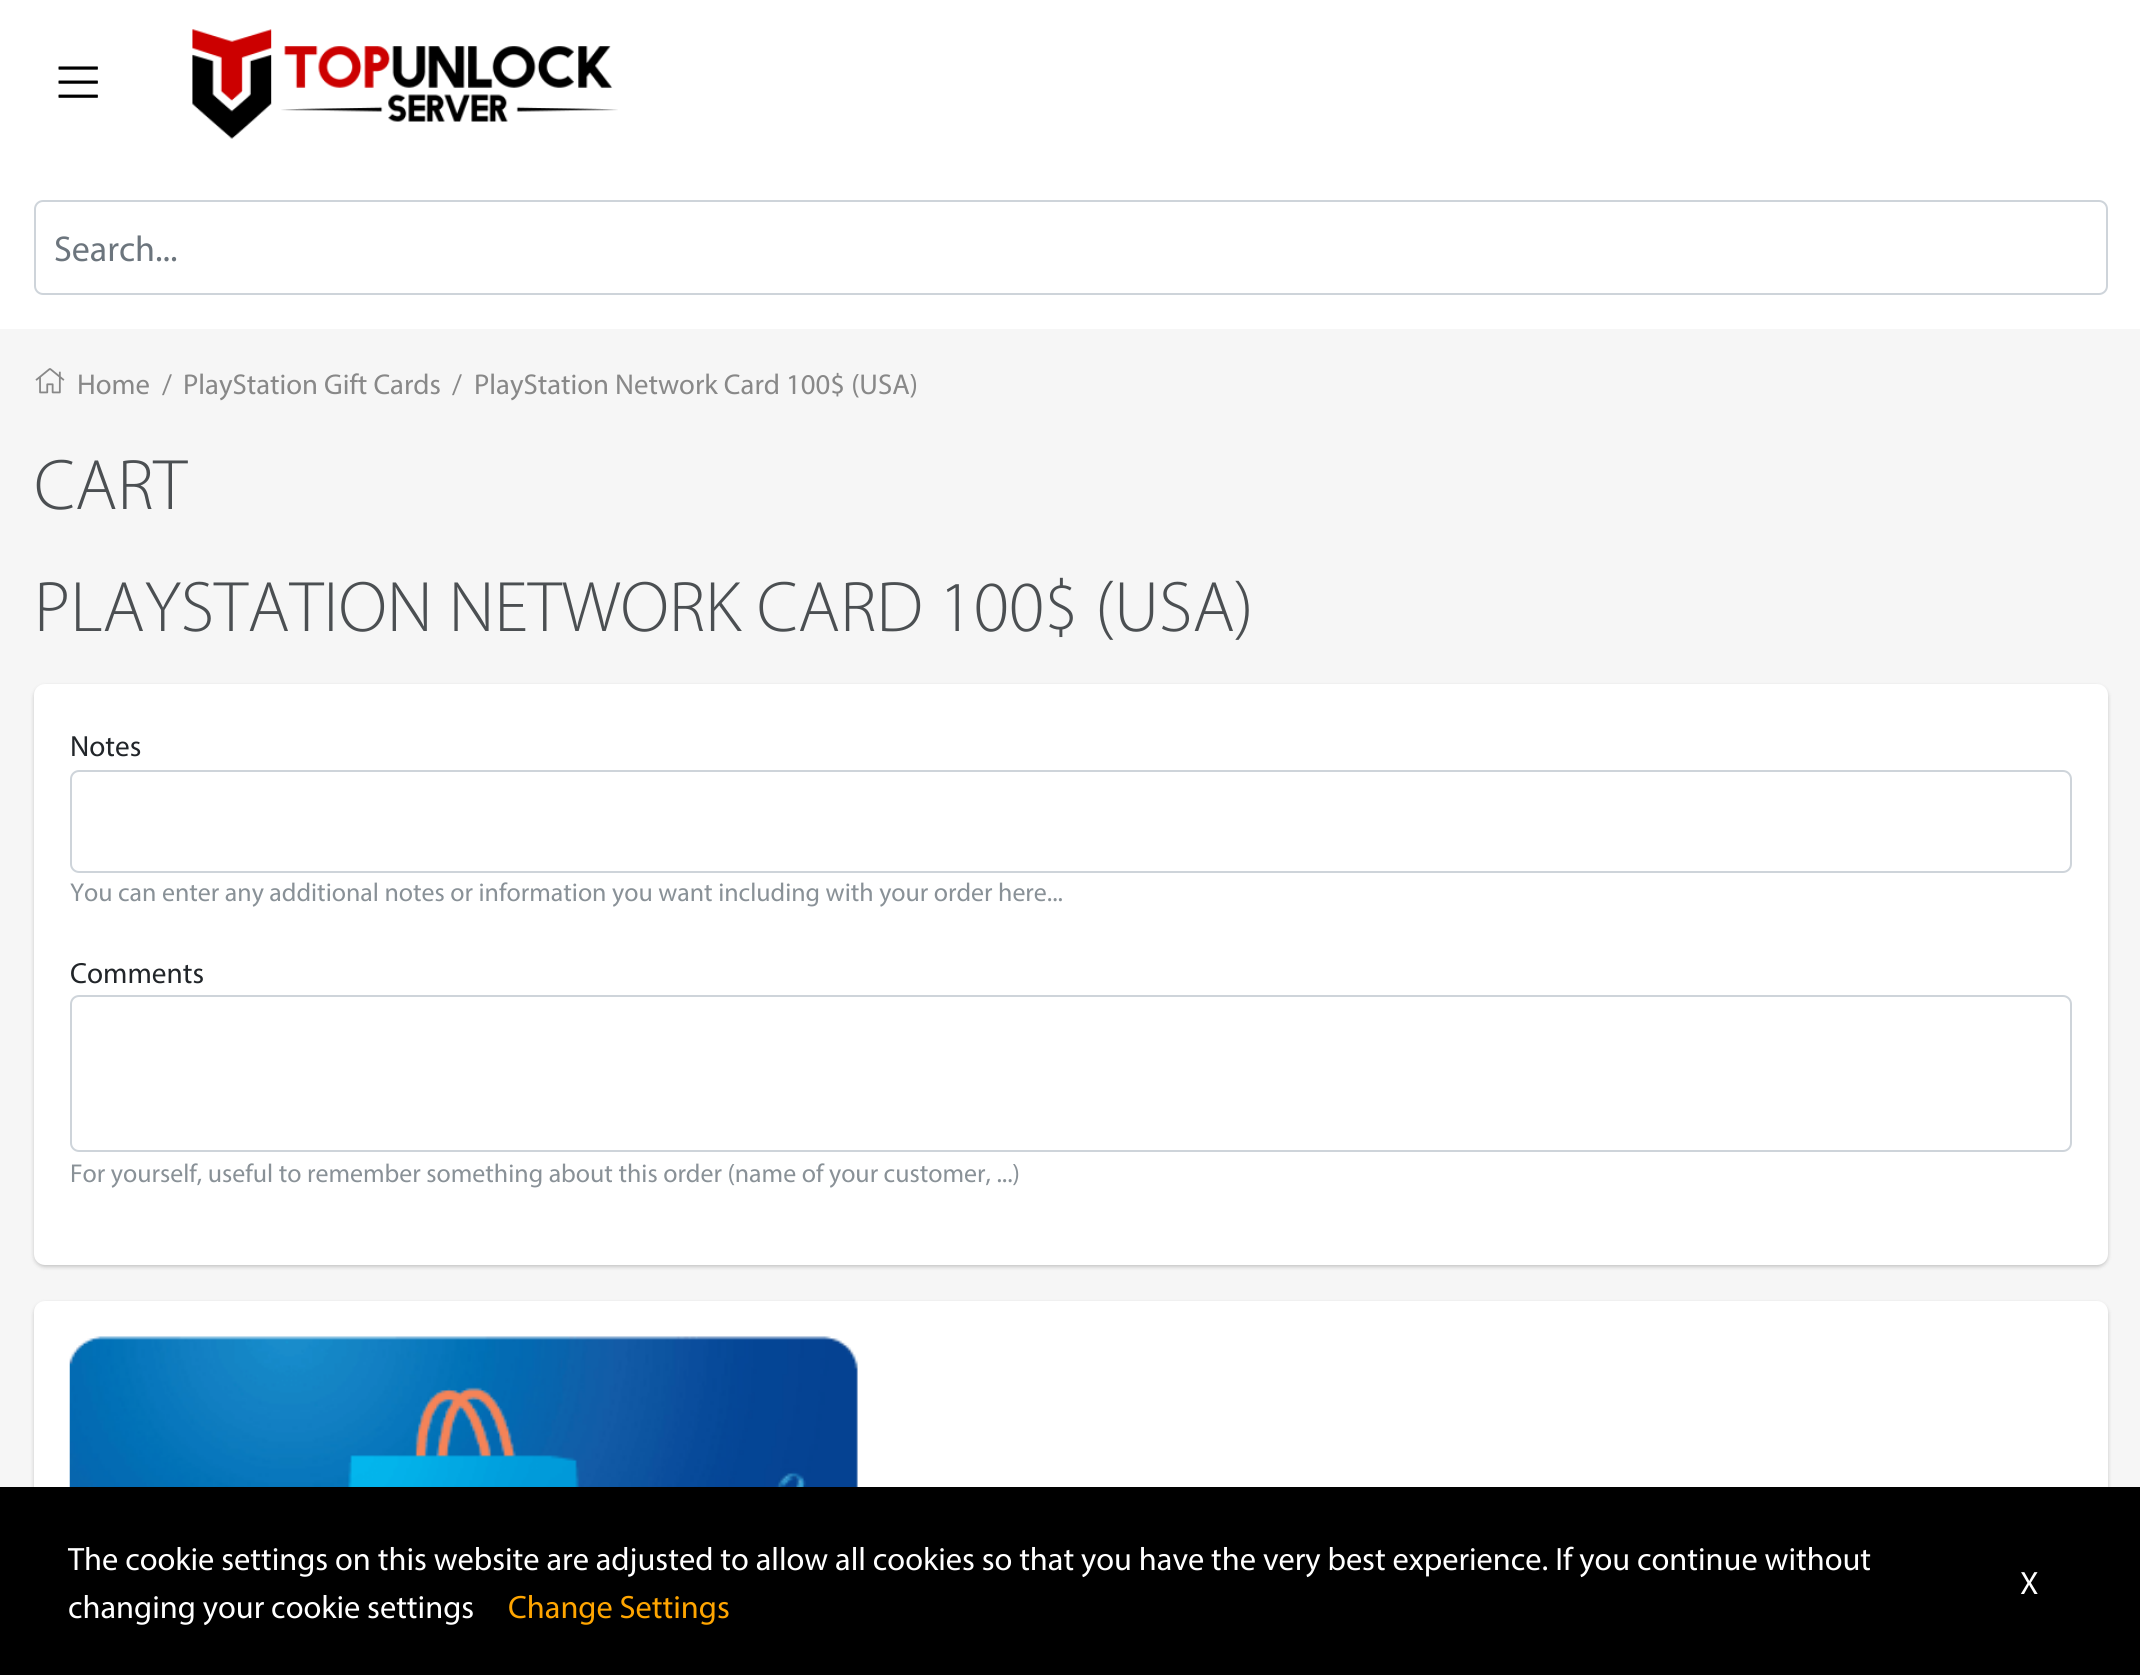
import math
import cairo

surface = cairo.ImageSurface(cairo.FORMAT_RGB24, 2140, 1675)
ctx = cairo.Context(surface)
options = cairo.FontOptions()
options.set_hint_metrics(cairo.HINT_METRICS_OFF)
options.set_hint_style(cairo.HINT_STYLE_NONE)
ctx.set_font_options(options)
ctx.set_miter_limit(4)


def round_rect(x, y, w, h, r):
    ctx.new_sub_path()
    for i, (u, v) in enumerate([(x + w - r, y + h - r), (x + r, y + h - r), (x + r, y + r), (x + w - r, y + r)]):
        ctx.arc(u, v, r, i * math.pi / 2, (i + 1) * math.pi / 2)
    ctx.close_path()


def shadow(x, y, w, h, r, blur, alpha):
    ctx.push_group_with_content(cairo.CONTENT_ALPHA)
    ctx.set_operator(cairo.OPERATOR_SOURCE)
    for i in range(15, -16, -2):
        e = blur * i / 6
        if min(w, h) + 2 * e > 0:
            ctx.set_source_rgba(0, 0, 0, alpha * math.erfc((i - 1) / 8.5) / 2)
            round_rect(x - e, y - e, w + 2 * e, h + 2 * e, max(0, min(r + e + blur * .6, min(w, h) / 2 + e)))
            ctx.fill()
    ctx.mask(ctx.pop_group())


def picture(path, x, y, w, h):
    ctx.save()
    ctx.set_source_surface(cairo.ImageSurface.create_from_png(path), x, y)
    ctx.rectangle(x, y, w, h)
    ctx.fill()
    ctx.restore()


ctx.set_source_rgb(0.961, 0.961, 0.961)
ctx.paint()
ctx.set_source_rgb(1, 1, 1)
ctx.rectangle(0, 0, 2140, 329)
ctx.fill()
picture("img1.png", 58, 66, 40, 32)
picture("img2.png", 192, 29, 426, 110)
round_rect(35, 201, 2072, 93, 8)
ctx.set_source_rgb(0.808, 0.831, 0.855)
ctx.stroke()
ctx.select_font_face("Myriad")
ctx.set_font_size(36)
ctx.set_source_rgb(0.424, 0.459, 0.49)
ctx.move_to(54, 261)
ctx.show_text("Search...")
picture("img3.png", 35, 368, 30, 26)
ctx.set_font_size(28.75)
ctx.set_source_rgb(0.533, 0.533, 0.533)
ctx.move_to(77, 394)
ctx.show_text("Home")
ctx.move_to(162, 394)
ctx.show_text("/")
ctx.move_to(183, 394)
ctx.show_text("PlayStation Gift Cards")
ctx.move_to(452, 394)
ctx.show_text("/")
ctx.move_to(474, 394)
ctx.show_text("PlayStation Network Card 100$ (USA)")
ctx.select_font_face("Myriad Light")
ctx.set_font_size(72)
ctx.set_source_rgb(0.294, 0.31, 0.322)
ctx.move_to(34, 509)
ctx.show_text("CART")
ctx.move_to(34, 631)
ctx.show_text("PLAYSTATION NETWORK CARD 100$ (USA)")
ctx.set_source_rgb(0, 0, 0)
shadow(34, 686, 2074, 581, 11, 2, 0.2)
ctx.set_source_rgb(1, 1, 1)
round_rect(34, 684, 2074, 581, 11)
ctx.fill()
ctx.select_font_face("Myriad")
ctx.set_font_size(29.25)
ctx.set_source_rgb(0.129, 0.145, 0.161)
ctx.move_to(70, 756)
ctx.show_text("Notes")
round_rect(71, 771, 2000, 101, 8)
ctx.set_source_rgb(0.808, 0.831, 0.855)
ctx.stroke()
ctx.set_font_size(25.9)
ctx.set_source_rgb(0.537, 0.569, 0.592)
ctx.move_to(70, 901)
ctx.show_text("You can enter any additional notes or information you want including with your order here...")
ctx.set_font_size(29.25)
ctx.set_source_rgb(0.129, 0.145, 0.161)
ctx.move_to(70, 983)
ctx.show_text("Comments")
round_rect(71, 996, 2000, 155, 8)
ctx.set_source_rgb(0.808, 0.831, 0.855)
ctx.stroke()
ctx.set_font_size(25.9)
ctx.set_source_rgb(0.537, 0.569, 0.592)
ctx.move_to(70, 1182)
ctx.show_text("For yourself, useful to remember something about this order (name of your customer, ...)")
ctx.set_source_rgb(0, 0, 0)
shadow(34, 1303, 2074, 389, 11, 2, 0.2)
ctx.set_source_rgb(1, 1, 1)
round_rect(34, 1301, 2074, 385, 11)
ctx.fill()
picture("img4.png", 69, 1336, 789, 151)
ctx.set_source_rgb(0, 0, 0)
ctx.rectangle(0, 1487, 2140, 188)
ctx.fill()
ctx.set_font_size(32.4)
ctx.set_source_rgb(1, 1, 1)
ctx.move_to(68, 1570)
ctx.show_text("The cookie settings on this website are adjusted to allow all cookies so that you have the very best experience. If you continue without")
ctx.move_to(68, 1618)
ctx.show_text("changing your cookie settings")
ctx.set_source_rgb(1, 0.647, 0)
ctx.move_to(508, 1618)
ctx.show_text("Change Settings")
ctx.set_source_rgb(1, 1, 1)
ctx.move_to(2020, 1594)
ctx.show_text("X")
surface.write_to_png("page.png")
